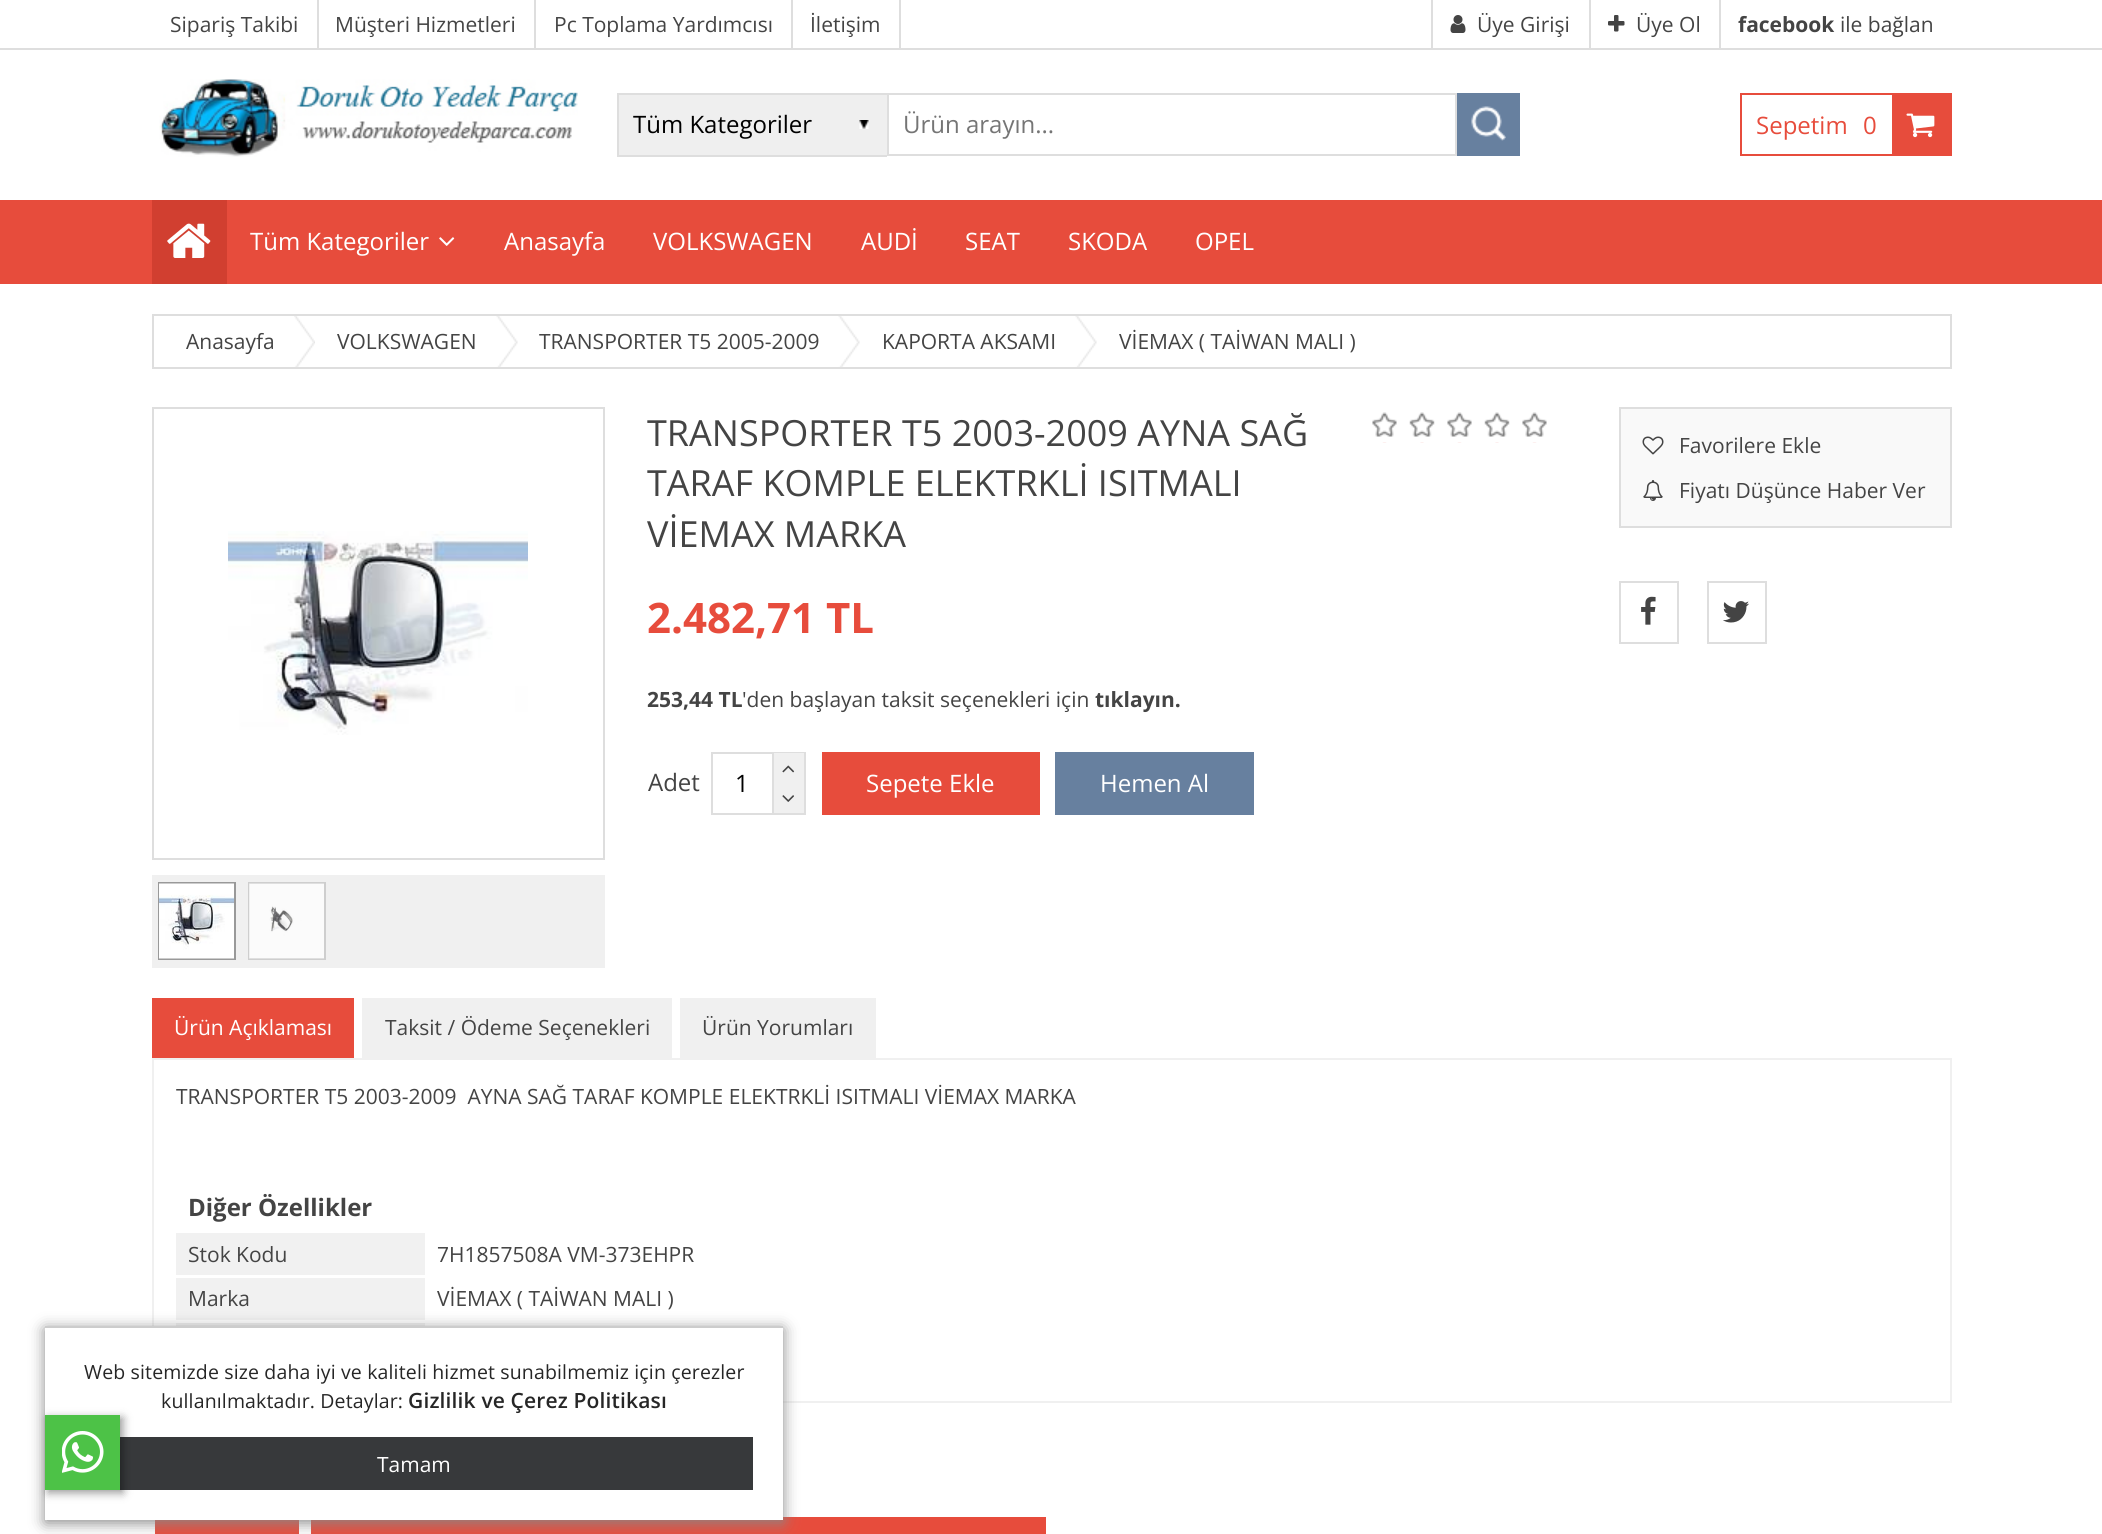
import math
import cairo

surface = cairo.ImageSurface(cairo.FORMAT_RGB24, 2102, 1534)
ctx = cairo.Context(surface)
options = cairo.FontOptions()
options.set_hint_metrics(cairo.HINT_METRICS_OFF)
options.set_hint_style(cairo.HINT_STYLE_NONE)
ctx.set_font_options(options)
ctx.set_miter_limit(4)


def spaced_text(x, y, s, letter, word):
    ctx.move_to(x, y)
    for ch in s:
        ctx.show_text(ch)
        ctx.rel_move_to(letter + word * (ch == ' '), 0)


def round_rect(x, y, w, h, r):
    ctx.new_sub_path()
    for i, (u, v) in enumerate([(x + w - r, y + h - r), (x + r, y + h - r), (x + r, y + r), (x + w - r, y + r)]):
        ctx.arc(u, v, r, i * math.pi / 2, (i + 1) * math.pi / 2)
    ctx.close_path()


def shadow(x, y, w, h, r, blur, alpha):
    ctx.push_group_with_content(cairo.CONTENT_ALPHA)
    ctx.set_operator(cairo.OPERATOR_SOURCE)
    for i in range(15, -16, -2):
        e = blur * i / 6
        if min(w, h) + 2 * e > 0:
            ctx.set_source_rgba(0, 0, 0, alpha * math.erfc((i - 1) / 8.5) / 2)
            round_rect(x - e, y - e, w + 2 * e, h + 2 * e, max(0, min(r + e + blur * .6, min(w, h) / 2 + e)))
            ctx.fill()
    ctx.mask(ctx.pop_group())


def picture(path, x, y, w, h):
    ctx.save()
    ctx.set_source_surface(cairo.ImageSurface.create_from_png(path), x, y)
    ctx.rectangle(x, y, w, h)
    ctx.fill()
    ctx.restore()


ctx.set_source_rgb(1, 1, 1)
ctx.paint()
ctx.set_source_rgb(0.871, 0.871, 0.871)
ctx.rectangle(0, 48, 2102, 2)
ctx.fill()
ctx.rectangle(317, 0, 2, 48)
ctx.fill()
ctx.select_font_face("Open Sans")
ctx.set_font_size(21)
ctx.set_source_rgb(0.267, 0.267, 0.267)
ctx.move_to(170, 32)
ctx.show_text("Sipariş Takibi")
ctx.set_source_rgb(0.871, 0.871, 0.871)
ctx.rectangle(534, 0, 2, 48)
ctx.fill()
ctx.set_source_rgb(0.267, 0.267, 0.267)
ctx.move_to(335, 32)
ctx.show_text("Müşteri Hizmetleri")
ctx.set_source_rgb(0.871, 0.871, 0.871)
ctx.rectangle(791, 0, 2, 48)
ctx.fill()
ctx.set_source_rgb(0.267, 0.267, 0.267)
ctx.move_to(554, 32)
ctx.show_text("Pc Toplama Yardımcısı")
ctx.set_source_rgb(0.871, 0.871, 0.871)
ctx.rectangle(899, 0, 2, 48)
ctx.fill()
ctx.set_source_rgb(0.267, 0.267, 0.267)
ctx.move_to(810, 32)
ctx.show_text("İletişim")
ctx.set_source_rgb(0.871, 0.871, 0.871)
ctx.rectangle(1431, 0, 2, 48)
ctx.fill()
picture("img1.png", 1450, 15, 16, 18)
ctx.set_source_rgb(0.267, 0.267, 0.267)
ctx.move_to(1477, 32)
ctx.show_text("Üye Girişi")
ctx.set_source_rgb(0.871, 0.871, 0.871)
ctx.rectangle(1589, 0, 2, 48)
ctx.fill()
picture("img2.png", 1608, 15, 17, 17)
ctx.set_source_rgb(0.267, 0.267, 0.267)
ctx.move_to(1636, 32)
ctx.show_text("Üye Ol")
ctx.set_source_rgb(0.871, 0.871, 0.871)
ctx.rectangle(1719, 0, 2, 48)
ctx.fill()
ctx.select_font_face("Open Sans", cairo.FONT_SLANT_NORMAL, cairo.FONT_WEIGHT_BOLD)
ctx.set_source_rgb(0.267, 0.267, 0.267)
ctx.move_to(1738, 32)
ctx.show_text("facebook")
ctx.select_font_face("Open Sans")
ctx.move_to(1840, 32)
ctx.show_text("ile bağlan")
picture("img3.png", 159, 79, 419, 78)
ctx.set_source_rgb(0.937, 0.937, 0.937)
ctx.rectangle(619, 95, 268, 60)
ctx.fill()
picture("img4.png", 859, 120, 10, 9)
ctx.set_source_rgb(0.871, 0.871, 0.871)
ctx.rectangle(617, 93, 270, 2)
ctx.fill()
ctx.rectangle(617, 155, 270, 2)
ctx.fill()
ctx.rectangle(617, 93, 2, 63)
ctx.fill()
ctx.set_font_size(24)
ctx.set_source_rgb(0, 0, 0)
ctx.move_to(633, 133)
ctx.show_text("Tüm Kategoriler")
ctx.rectangle(888, 94, 568, 61)
ctx.set_source_rgb(0.871, 0.871, 0.871)
ctx.stroke()
ctx.set_source_rgb(0.459, 0.459, 0.459)
ctx.move_to(903, 133)
ctx.show_text("Ürün arayın...")
ctx.set_source_rgb(0.404, 0.502, 0.624)
ctx.rectangle(1457, 93, 63, 63)
ctx.fill()
picture("img5.png", 1471, 106, 35, 35)
ctx.rectangle(1741, 94, 210, 61)
ctx.set_source_rgb(0.906, 0.298, 0.235)
ctx.stroke()
ctx.move_to(1756, 134)
ctx.show_text("Sepetim")
ctx.move_to(1863, 134)
ctx.show_text("0")
ctx.rectangle(1892, 95, 58, 59)
ctx.fill()
picture("img6.png", 1906, 113, 29, 25)
ctx.rectangle(0, 200, 2102, 84)
ctx.fill()
ctx.set_source_rgb(0.82, 0.247, 0.188)
ctx.rectangle(152, 200, 75, 84)
ctx.fill()
picture("img7.png", 167, 223, 44, 35)
ctx.set_source_rgb(1, 1, 1)
ctx.move_to(250, 250)
ctx.show_text("Tüm Kategoriler")
picture("img8.png", 439, 237, 16, 9)
ctx.move_to(504, 250)
ctx.show_text("Anasayfa")
ctx.move_to(653, 250)
ctx.show_text("VOLKSWAGEN")
ctx.move_to(861, 250)
ctx.show_text("AUDİ")
ctx.move_to(965, 250)
ctx.show_text("SEAT")
ctx.move_to(1068, 250)
ctx.show_text("SKODA")
ctx.move_to(1195, 250)
ctx.show_text("OPEL")
ctx.rectangle(153, 1059, 1798, 343)
ctx.set_source_rgb(0.941, 0.941, 0.941)
ctx.stroke()
ctx.set_source_rgb(0.945, 0.945, 0.945)
ctx.rectangle(176, 1278, 249, 42)
ctx.fill()
ctx.rectangle(176, 1323, 249, 3)
ctx.fill()
ctx.set_source_rgb(0.906, 0.298, 0.235)
ctx.rectangle(155, 1520, 144, 14)
ctx.fill()
ctx.rectangle(311, 1517, 735, 17)
ctx.fill()
ctx.set_source_rgb(0.533, 0.533, 0.533)
shadow(45, 1329, 738, 194, 0, 7.5, 1)
ctx.set_source_rgb(1, 1, 1)
ctx.rectangle(45, 1328, 738, 192)
ctx.fill()
ctx.set_source_rgb(0.8, 0.8, 0.8)
ctx.rectangle(45, 1326, 738, 2)
ctx.fill()
ctx.set_font_size(19.5)
ctx.set_source_rgb(0.149, 0.149, 0.149)
spaced_text(84, 1379, "Web sitemizde size daha iyi ve kaliteli hizmet sunabilmemiz için çerezler", 0.15, 0)
spaced_text(161, 1408, "kullanılmaktadır. Detaylar:", 0.15, 0)
ctx.select_font_face("Open Sans SemiBold")
ctx.set_font_size(21)
spaced_text(408, 1408, "Gizlilik ve Çerez Politikası", 0.15, 0)
ctx.set_source_rgb(0.216, 0.224, 0.231)
ctx.rectangle(120, 1437, 633, 53)
ctx.fill()
ctx.select_font_face("Open Sans")
ctx.set_source_rgb(1, 1, 1)
ctx.move_to(377, 1472)
ctx.show_text("Tamam")
ctx.rectangle(153, 315, 1798, 53)
ctx.set_source_rgb(0.871, 0.871, 0.871)
ctx.stroke()
ctx.set_source_rgb(0.267, 0.267, 0.267)
ctx.move_to(186, 349)
ctx.show_text("Anasayfa")
picture("img9.png", 294, 316, 21, 51)
ctx.move_to(337, 349)
ctx.show_text("VOLKSWAGEN")
picture("img10.png", 496, 316, 22, 51)
ctx.move_to(539, 349)
ctx.show_text("TRANSPORTER T5 2005-2009")
picture("img11.png", 838, 316, 22, 51)
ctx.move_to(882, 349)
ctx.show_text("KAPORTA AKSAMI")
picture("img12.png", 1075, 316, 22, 51)
ctx.move_to(1119, 349)
ctx.show_text("VİEMAX ( TAİWAN MALI )")
ctx.rectangle(153, 408, 451, 451)
ctx.set_source_rgb(0.871, 0.871, 0.871)
ctx.stroke()
picture("img13.png", 228, 531, 300, 204)
ctx.set_source_rgb(0.941, 0.941, 0.941)
ctx.rectangle(152, 875, 453, 93)
ctx.fill()
ctx.rectangle(159, 883, 76, 76)
ctx.set_source_rgb(0.6, 0.6, 0.6)
ctx.stroke()
picture("img14.png", 159, 883, 75, 76)
ctx.rectangle(249, 883, 76, 76)
ctx.set_source_rgb(0.808, 0.808, 0.808)
ctx.stroke()
picture("img15.png", 249, 883, 75, 76)
ctx.set_font_size(36)
ctx.set_source_rgb(0.267, 0.267, 0.267)
ctx.move_to(647, 446)
ctx.show_text("TRANSPORTER T5 2003-2009 AYNA SAĞ")
ctx.move_to(647, 496)
ctx.show_text("TARAF KOMPLE ELEKTRKLİ ISITMALI")
ctx.move_to(647, 547)
ctx.show_text("VİEMAX MARKA")
picture("img16.png", 1372, 412, 175, 31)
ctx.set_source_rgb(0.976, 0.976, 0.976)
ctx.rectangle(1620, 408, 331, 119)
ctx.fill_preserve()
ctx.set_source_rgb(0.871, 0.871, 0.871)
ctx.stroke()
picture("img17.png", 1642, 436, 22, 19)
ctx.set_font_size(21)
ctx.set_source_rgb(0.267, 0.267, 0.267)
ctx.move_to(1679, 453)
ctx.show_text("Favorilere Ekle")
picture("img18.png", 1643, 480, 20, 21)
ctx.move_to(1679, 498)
ctx.show_text("Fiyatı Düşünce Haber Ver")
ctx.select_font_face("Open Sans", cairo.FONT_SLANT_NORMAL, cairo.FONT_WEIGHT_BOLD)
ctx.set_font_size(42)
ctx.set_source_rgb(0.906, 0.298, 0.235)
ctx.move_to(647, 633)
ctx.show_text("2.482,71 TL")
ctx.set_font_size(21)
ctx.set_source_rgb(0.267, 0.267, 0.267)
ctx.move_to(647, 707)
ctx.show_text("253,44 TL")
ctx.select_font_face("Open Sans")
ctx.move_to(742, 707)
ctx.show_text("'den başlayan taksit seçenekleri için")
ctx.select_font_face("Open Sans", cairo.FONT_SLANT_NORMAL, cairo.FONT_WEIGHT_BOLD)
ctx.move_to(1095, 707)
ctx.show_text("tıklayın.")
ctx.select_font_face("Open Sans")
ctx.set_font_size(24)
ctx.move_to(648, 791)
ctx.show_text("Adet")
ctx.rectangle(712, 753, 61, 61)
ctx.set_source_rgb(0.871, 0.871, 0.871)
ctx.stroke()
ctx.set_source_rgb(0, 0, 0)
ctx.move_to(735, 792)
ctx.show_text("1")
ctx.set_source_rgb(0.871, 0.871, 0.871)
ctx.rectangle(774, 752, 32, 1)
ctx.fill()
ctx.rectangle(804, 752, 2, 63)
ctx.fill()
ctx.rectangle(774, 813, 32, 2)
ctx.fill()
ctx.set_source_rgb(0.941, 0.941, 0.941)
ctx.rectangle(774, 753, 30, 60)
ctx.fill()
picture("img19.png", 782, 765, 13, 8)
picture("img20.png", 782, 795, 12, 7)
ctx.set_source_rgb(0.906, 0.298, 0.235)
ctx.rectangle(822, 752, 218, 63)
ctx.fill()
ctx.set_source_rgb(1, 1, 1)
ctx.move_to(866, 792)
ctx.show_text("Sepete Ekle")
ctx.set_source_rgb(0.404, 0.502, 0.624)
ctx.rectangle(1055, 752, 199, 63)
ctx.fill()
ctx.set_source_rgb(1, 1, 1)
ctx.move_to(1100, 792)
ctx.show_text("Hemen Al")
ctx.rectangle(1620, 582, 58, 61)
ctx.set_source_rgb(0.871, 0.871, 0.871)
ctx.stroke()
picture("img21.png", 1641, 596, 15, 29)
ctx.rectangle(1708, 582, 58, 61)
ctx.stroke()
picture("img22.png", 1723, 601, 26, 22)
ctx.set_source_rgb(0.906, 0.298, 0.235)
ctx.rectangle(152, 998, 202, 60)
ctx.fill()
ctx.set_font_size(21)
ctx.set_source_rgb(1, 1, 1)
ctx.move_to(174, 1035)
ctx.show_text("Ürün Açıklaması")
ctx.set_source_rgb(0.941, 0.941, 0.941)
ctx.rectangle(362, 998, 310, 60)
ctx.fill()
ctx.set_source_rgb(0.267, 0.267, 0.267)
ctx.move_to(385, 1035)
ctx.show_text("Taksit / Ödeme Seçenekleri")
ctx.set_source_rgb(0.941, 0.941, 0.941)
ctx.rectangle(680, 998, 196, 60)
ctx.fill()
ctx.set_source_rgb(0.267, 0.267, 0.267)
ctx.move_to(702, 1035)
ctx.show_text("Ürün Yorumları")
ctx.move_to(176, 1104)
ctx.show_text("TRANSPORTER T5 2003-2009  AYNA SAĞ TARAF KOMPLE ELEKTRKLİ ISITMALI VİEMAX MARKA")
ctx.select_font_face("Open Sans", cairo.FONT_SLANT_NORMAL, cairo.FONT_WEIGHT_BOLD)
ctx.set_font_size(24)
ctx.move_to(188, 1216)
ctx.show_text("Diğer Özellikler")
ctx.set_source_rgb(0.945, 0.945, 0.945)
ctx.rectangle(176, 1233, 249, 42)
ctx.fill()
ctx.select_font_face("Open Sans")
ctx.set_font_size(21)
ctx.set_source_rgb(0.267, 0.267, 0.267)
ctx.move_to(188, 1262)
ctx.show_text("Stok Kodu")
ctx.move_to(437, 1262)
ctx.show_text("7H1857508A VM-373EHPR")
ctx.move_to(188, 1306)
ctx.show_text("Marka")
ctx.move_to(437, 1306)
ctx.show_text("VİEMAX ( TAİWAN MALI )")
ctx.set_source_rgb(0, 0, 0)
shadow(48, 1418, 75, 75, 0, 4.5, 0.4)
ctx.set_source_rgb(0.302, 0.761, 0.278)
ctx.rectangle(45, 1415, 75, 75)
ctx.fill()
picture("img23.png", 62, 1431, 42, 42)
surface.write_to_png("page.png")
